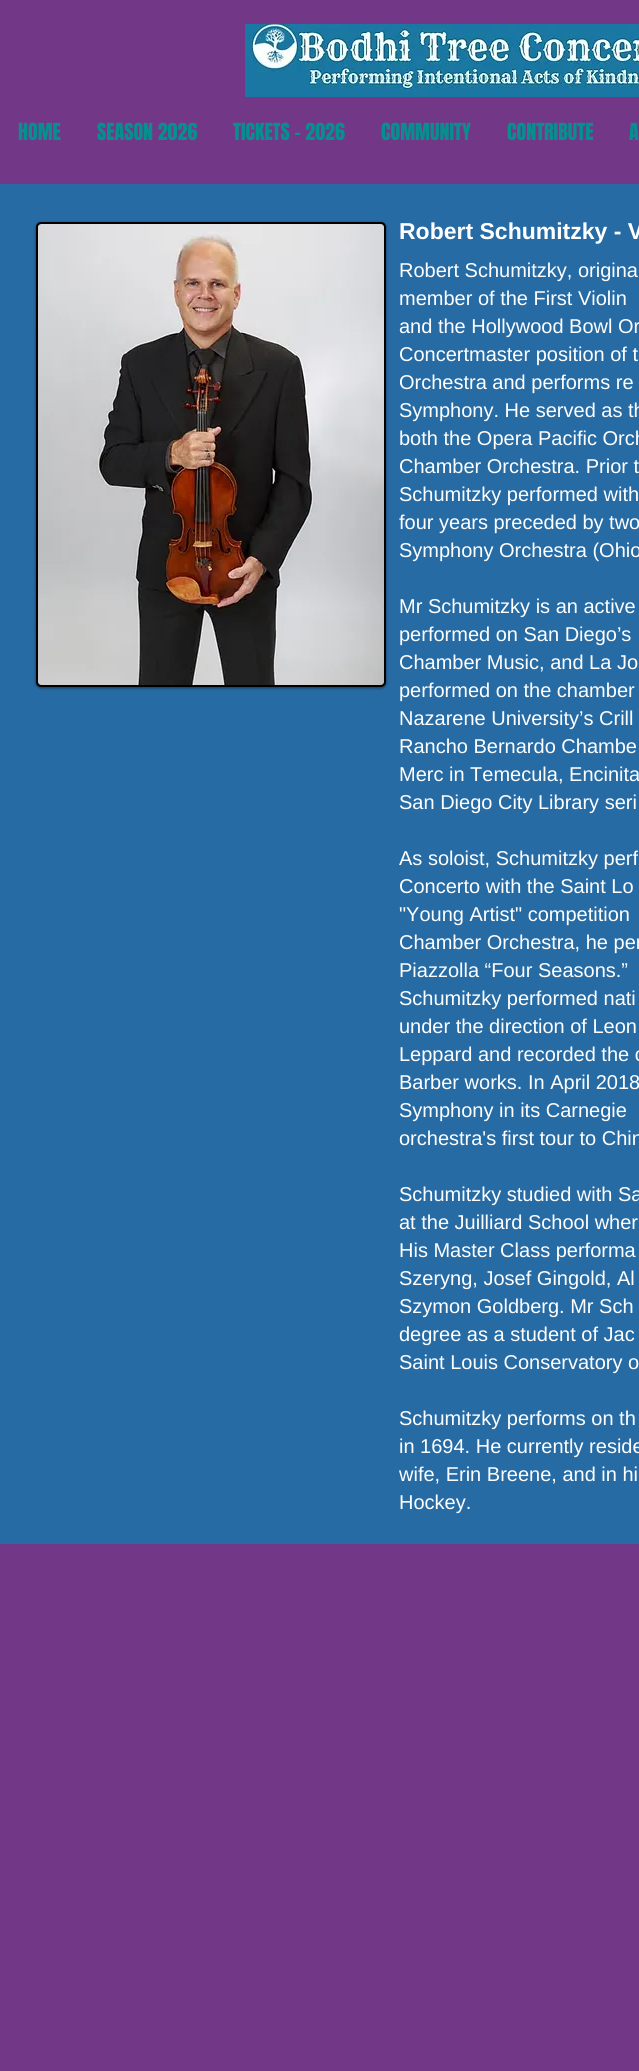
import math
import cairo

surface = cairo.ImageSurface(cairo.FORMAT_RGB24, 639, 2071)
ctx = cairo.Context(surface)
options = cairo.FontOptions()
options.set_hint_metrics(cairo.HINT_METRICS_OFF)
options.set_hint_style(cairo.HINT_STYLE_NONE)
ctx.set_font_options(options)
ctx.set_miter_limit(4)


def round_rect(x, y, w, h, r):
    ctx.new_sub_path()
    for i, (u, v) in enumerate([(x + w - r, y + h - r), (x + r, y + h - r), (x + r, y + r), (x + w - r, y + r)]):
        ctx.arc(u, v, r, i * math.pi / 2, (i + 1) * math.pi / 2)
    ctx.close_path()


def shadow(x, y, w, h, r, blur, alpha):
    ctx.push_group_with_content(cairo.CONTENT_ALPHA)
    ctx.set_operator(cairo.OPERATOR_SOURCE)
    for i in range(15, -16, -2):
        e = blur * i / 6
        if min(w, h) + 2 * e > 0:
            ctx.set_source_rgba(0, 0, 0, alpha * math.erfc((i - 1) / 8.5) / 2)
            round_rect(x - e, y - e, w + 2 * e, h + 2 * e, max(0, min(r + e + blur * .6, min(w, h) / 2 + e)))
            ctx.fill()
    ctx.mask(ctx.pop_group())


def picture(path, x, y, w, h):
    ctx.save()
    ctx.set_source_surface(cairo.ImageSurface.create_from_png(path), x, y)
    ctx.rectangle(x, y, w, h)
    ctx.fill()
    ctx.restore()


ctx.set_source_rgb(0.451, 0.216, 0.529)
ctx.paint()
picture("img1.png", 245, 24, 394, 73)
ctx.select_font_face("Anton")
ctx.set_font_size(20)
ctx.set_source_rgb(0.031, 0.561, 0.561)
ctx.move_to(18, 140)
ctx.show_text("HOME")
ctx.move_to(97, 140)
ctx.show_text("SEASON 2026")
ctx.move_to(233, 140)
ctx.show_text("TICKETS - 2026")
ctx.move_to(381, 140)
ctx.show_text("COMMUNITY")
ctx.move_to(507, 140)
ctx.show_text("CONTRIBUTE")
ctx.move_to(629, 140)
ctx.show_text("A")
ctx.set_source_rgb(0.153, 0.42, 0.647)
ctx.rectangle(0, 184, 639, 1360)
ctx.fill()
ctx.set_source_rgb(0, 0, 0)
shadow(36, 223, 350, 465, 5, 1.5, 0.5)
ctx.set_source_rgb(0, 0, 0)
round_rect(37, 223, 348, 463, 4)
ctx.fill_preserve()
ctx.stroke()
picture("img2.png", 38, 224, 346, 461)
ctx.select_font_face("Liberation Sans", cairo.FONT_SLANT_NORMAL, cairo.FONT_WEIGHT_BOLD)
ctx.set_font_size(23)
ctx.set_source_rgb(1, 1, 1)
ctx.move_to(399, 239)
ctx.show_text("Robert Schumitzky - V")
ctx.select_font_face("Liberation Sans")
ctx.set_font_size(20)
ctx.move_to(399, 277)
ctx.show_text("Robert Schumitzky, origina")
ctx.move_to(399, 305)
ctx.show_text("member of the First Violin")
ctx.move_to(399, 333)
ctx.show_text("and the Hollywood Bowl Or")
ctx.move_to(399, 361)
ctx.show_text("Concertmaster position of t")
ctx.move_to(399, 389)
ctx.show_text("Orchestra and performs re")
ctx.move_to(399, 417)
ctx.show_text("Symphony. He served as th")
ctx.move_to(399, 445)
ctx.show_text("both the Opera Pacific Orch")
ctx.move_to(399, 473)
ctx.show_text("Chamber Orchestra. Prior t")
ctx.move_to(399, 501)
ctx.show_text("Schumitzky performed with")
ctx.move_to(399, 529)
ctx.show_text("four years preceded by two")
ctx.move_to(399, 557)
ctx.show_text("Symphony Orchestra (Ohio")
ctx.move_to(399, 613)
ctx.show_text("Mr Schumitzky is an active")
ctx.move_to(399, 641)
ctx.show_text("performed on San Diego’s")
ctx.move_to(399, 669)
ctx.show_text("Chamber Music, and La Jo")
ctx.move_to(399, 697)
ctx.show_text("performed on the chamber")
ctx.move_to(399, 725)
ctx.show_text("Nazarene University’s Crill")
ctx.move_to(399, 753)
ctx.show_text("Rancho Bernardo Chambe")
ctx.move_to(399, 781)
ctx.show_text("Merc in Temecula, Encinita")
ctx.move_to(399, 809)
ctx.show_text("San Diego City Library seri")
ctx.move_to(399, 865)
ctx.show_text("As soloist, Schumitzky perf")
ctx.move_to(399, 893)
ctx.show_text("Concerto with the Saint Lo")
ctx.move_to(399, 921)
ctx.show_text("\"Young Artist\" competition")
ctx.move_to(399, 949)
ctx.show_text("Chamber Orchestra, he per")
ctx.move_to(399, 977)
ctx.show_text("Piazzolla “Four Seasons.”")
ctx.move_to(399, 1005)
ctx.show_text("Schumitzky performed nati")
ctx.move_to(399, 1033)
ctx.show_text("under the direction of Leon")
ctx.move_to(399, 1061)
ctx.show_text("Leppard and recorded the c")
ctx.move_to(399, 1089)
ctx.show_text("Barber works. In April 2018")
ctx.move_to(399, 1117)
ctx.show_text("Symphony in its Carnegie")
ctx.move_to(399, 1145)
ctx.show_text("orchestra's first tour to Chin")
ctx.move_to(399, 1201)
ctx.show_text("Schumitzky studied with Sa")
ctx.move_to(399, 1229)
ctx.show_text("at the Juilliard School wher")
ctx.move_to(399, 1257)
ctx.show_text("His Master Class performa")
ctx.move_to(399, 1285)
ctx.show_text("Szeryng, Josef Gingold, Al")
ctx.move_to(399, 1313)
ctx.show_text("Szymon Goldberg. Mr Sch")
ctx.move_to(399, 1341)
ctx.show_text("degree as a student of Jac")
ctx.move_to(399, 1369)
ctx.show_text("Saint Louis Conservatory o")
ctx.move_to(399, 1425)
ctx.show_text("Schumitzky performs on th")
ctx.move_to(399, 1453)
ctx.show_text("in 1694. He currently reside")
ctx.move_to(399, 1481)
ctx.show_text("wife, Erin Breene, and in hi")
ctx.move_to(399, 1509)
ctx.show_text("Hockey.")
surface.write_to_png("page.png")
